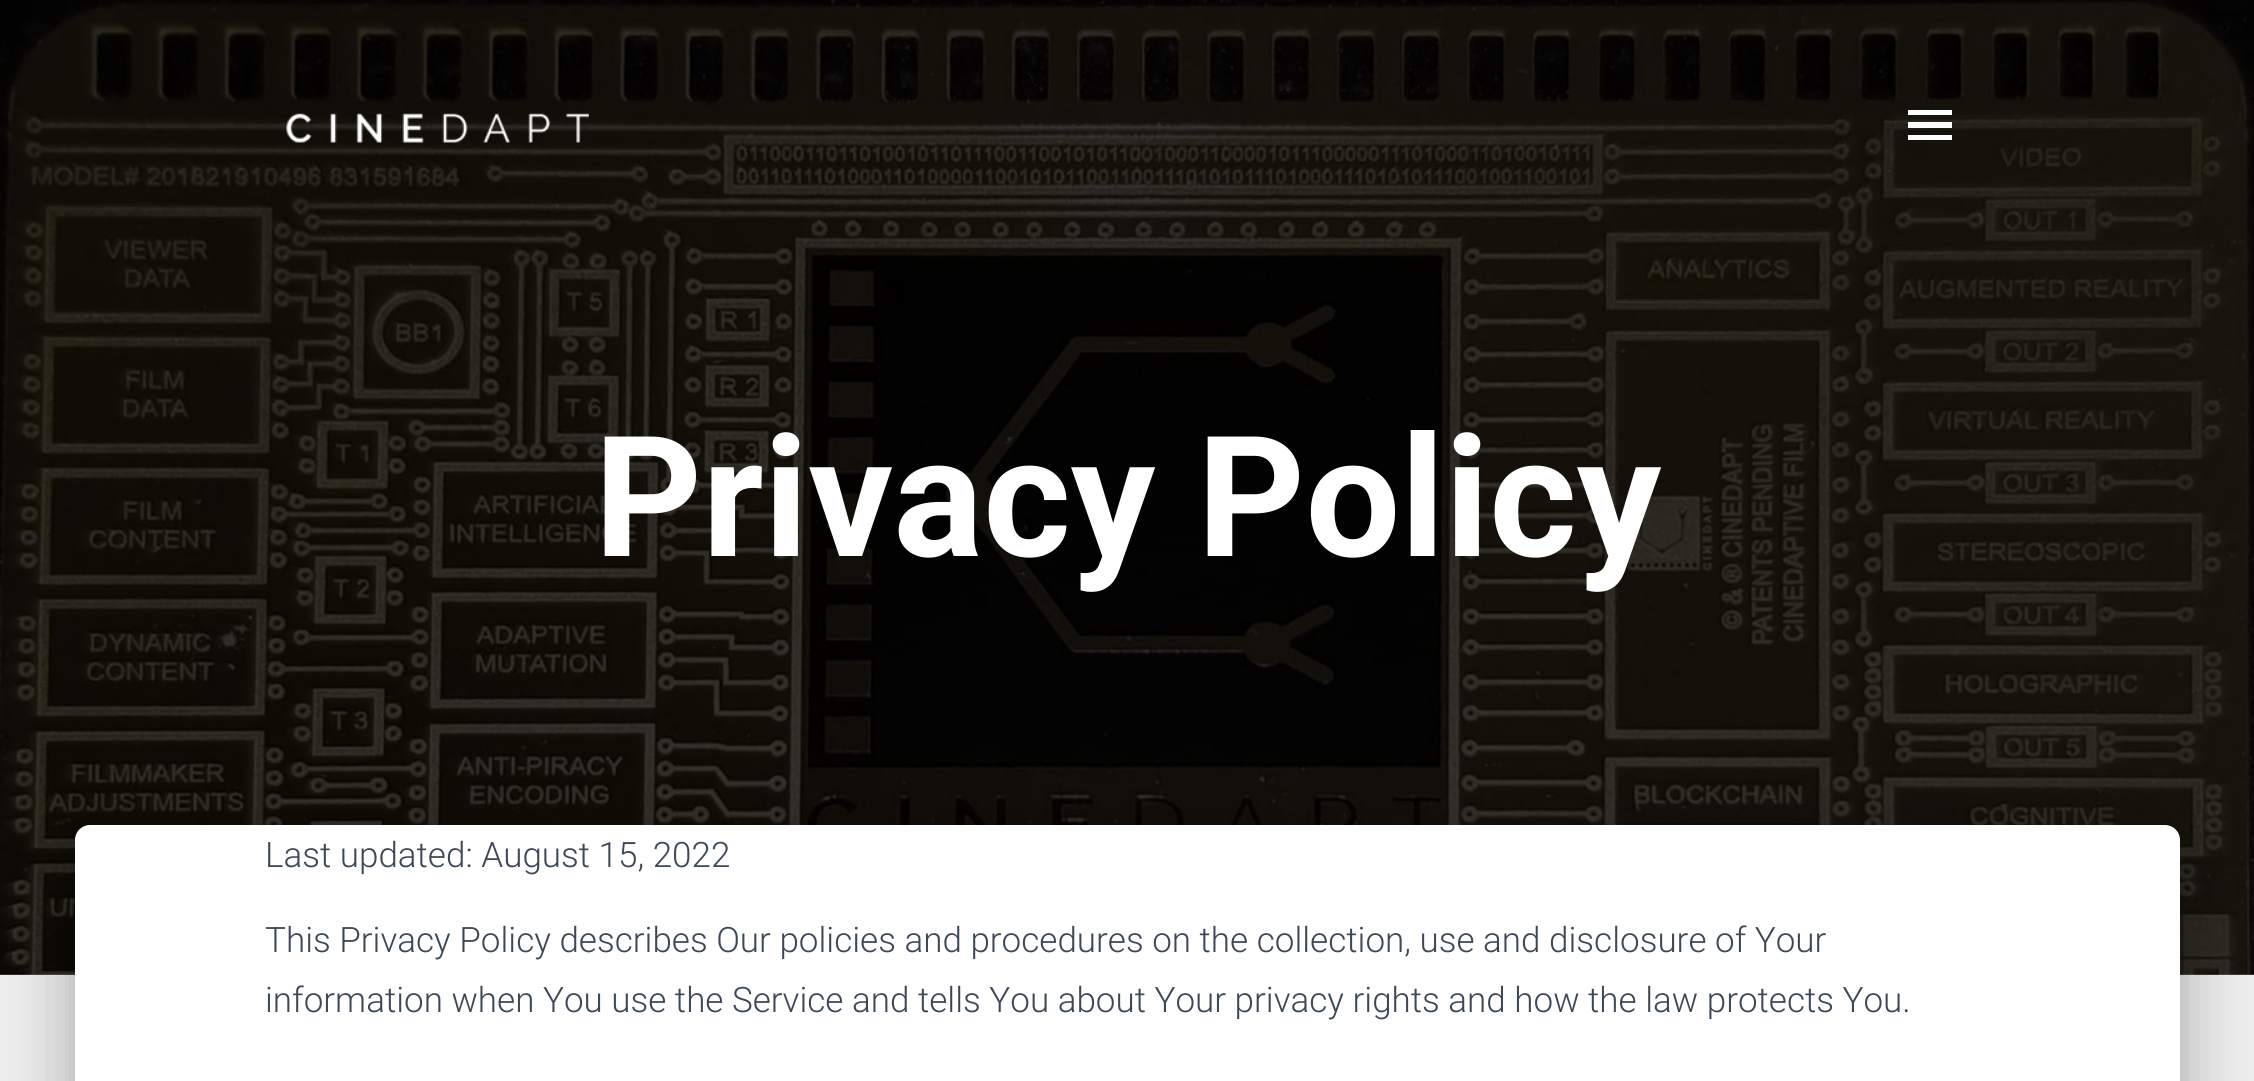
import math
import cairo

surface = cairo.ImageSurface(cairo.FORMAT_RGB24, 2254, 1081)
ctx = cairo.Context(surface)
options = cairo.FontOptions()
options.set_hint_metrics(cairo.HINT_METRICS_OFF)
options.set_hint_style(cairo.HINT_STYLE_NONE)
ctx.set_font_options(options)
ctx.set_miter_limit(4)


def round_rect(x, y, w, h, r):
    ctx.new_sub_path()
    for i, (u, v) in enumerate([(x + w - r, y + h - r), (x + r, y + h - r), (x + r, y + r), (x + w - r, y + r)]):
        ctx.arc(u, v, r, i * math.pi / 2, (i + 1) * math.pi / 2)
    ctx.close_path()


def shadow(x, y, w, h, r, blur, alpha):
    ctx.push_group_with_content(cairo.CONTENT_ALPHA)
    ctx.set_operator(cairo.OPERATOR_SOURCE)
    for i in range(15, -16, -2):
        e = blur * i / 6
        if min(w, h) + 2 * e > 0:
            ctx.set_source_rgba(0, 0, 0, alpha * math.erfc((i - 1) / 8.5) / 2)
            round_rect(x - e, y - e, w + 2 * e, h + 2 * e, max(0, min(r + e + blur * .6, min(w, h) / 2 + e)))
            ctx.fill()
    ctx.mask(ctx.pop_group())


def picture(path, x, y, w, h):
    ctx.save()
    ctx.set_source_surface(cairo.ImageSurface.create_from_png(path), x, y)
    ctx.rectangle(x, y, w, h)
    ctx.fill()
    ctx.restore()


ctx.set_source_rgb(0.933, 0.933, 0.933)
ctx.paint()
picture("img2.png", 0, 0, 2254, 975)
picture("img1.png", 286, 113, 303, 30)
ctx.set_source_rgb(1, 1, 1)
ctx.new_path()
ctx.move_to(1908, 140)
ctx.line_to(1952, 140)
ctx.line_to(1952, 135)
ctx.line_to(1908, 135)
ctx.close_path()
ctx.move_to(1908, 128)
ctx.line_to(1952, 128)
ctx.line_to(1952, 122)
ctx.line_to(1908, 122)
ctx.close_path()
ctx.move_to(1908, 110)
ctx.line_to(1908, 115)
ctx.line_to(1952, 115)
ctx.line_to(1952, 110)
ctx.close_path()
ctx.fill()
ctx.select_font_face("Roboto", cairo.FONT_SLANT_NORMAL, cairo.FONT_WEIGHT_BOLD)
ctx.set_font_size(168)
ctx.move_to(594, 556)
ctx.show_text("Privacy Policy")
ctx.set_source_rgb(0, 0, 0)
shadow(88, 858, 2080, 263, 2.5, 12.5, 0.2)
shadow(63, 828, 2130, 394, 28, 37.5, 0.12)
shadow(70, 860, 2115, 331, 20, 30, 0.14)
ctx.set_source_rgb(1, 1, 1)
round_rect(75, 825, 2105, 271, 15)
ctx.fill()
ctx.select_font_face("Roboto Light")
ctx.set_font_size(35)
ctx.set_source_rgb(0.235, 0.282, 0.345)
ctx.move_to(265, 867)
ctx.show_text("Last updated: August 15, 2022")
ctx.move_to(265, 952)
ctx.show_text("This Privacy Policy describes Our policies and procedures on the collection, use and disclosure of Your")
ctx.move_to(265, 1012)
ctx.show_text("information when You use the Service and tells You about Your privacy rights and how the law protects You.")
surface.write_to_png("page.png")
